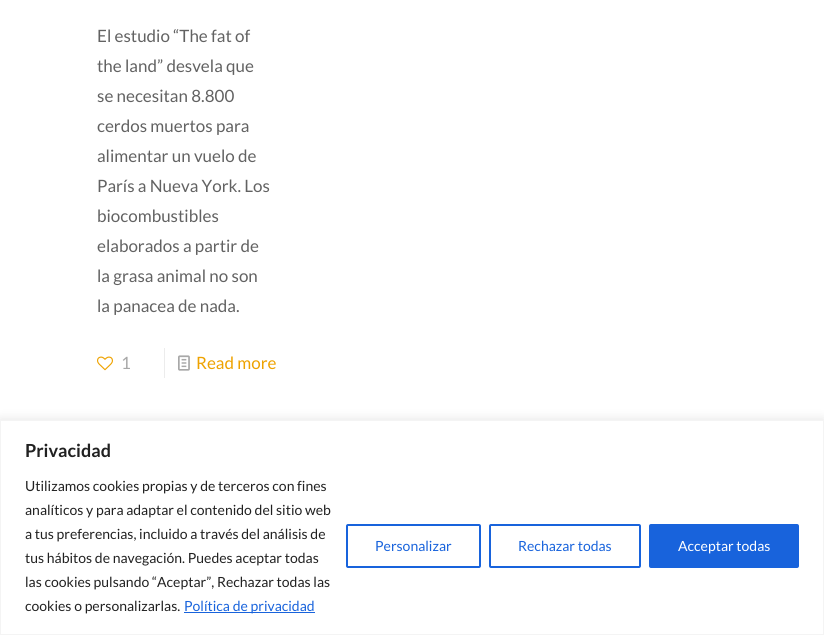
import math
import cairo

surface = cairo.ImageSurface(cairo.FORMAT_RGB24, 824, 635)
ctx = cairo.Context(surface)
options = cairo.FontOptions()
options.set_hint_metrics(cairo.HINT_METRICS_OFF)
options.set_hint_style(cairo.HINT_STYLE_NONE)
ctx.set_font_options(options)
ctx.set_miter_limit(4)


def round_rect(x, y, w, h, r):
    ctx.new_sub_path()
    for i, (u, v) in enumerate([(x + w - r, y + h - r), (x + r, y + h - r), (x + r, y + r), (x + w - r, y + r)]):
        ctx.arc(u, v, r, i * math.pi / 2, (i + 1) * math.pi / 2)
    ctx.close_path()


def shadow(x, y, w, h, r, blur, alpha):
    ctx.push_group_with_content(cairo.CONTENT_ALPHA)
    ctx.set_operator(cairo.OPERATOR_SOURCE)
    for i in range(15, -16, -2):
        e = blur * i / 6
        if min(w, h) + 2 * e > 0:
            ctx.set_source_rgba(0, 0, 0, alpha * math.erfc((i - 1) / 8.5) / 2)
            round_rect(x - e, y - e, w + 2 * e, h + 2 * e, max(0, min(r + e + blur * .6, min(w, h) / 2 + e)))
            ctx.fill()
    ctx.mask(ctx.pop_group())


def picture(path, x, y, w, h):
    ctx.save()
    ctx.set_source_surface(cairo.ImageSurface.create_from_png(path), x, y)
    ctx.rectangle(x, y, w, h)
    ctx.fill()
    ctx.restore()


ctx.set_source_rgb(1, 1, 1)
ctx.paint()
ctx.select_font_face("Lato")
ctx.set_font_size(17)
ctx.set_source_rgb(0.384, 0.384, 0.384)
ctx.move_to(97, 42)
ctx.show_text("El estudio “The fat of")
ctx.move_to(97, 72)
ctx.show_text("the land” desvela que")
ctx.move_to(97, 102)
ctx.show_text("se necesitan 8.800")
ctx.move_to(97, 132)
ctx.show_text("cerdos muertos para")
ctx.move_to(97, 162)
ctx.show_text("alimentar un vuelo de")
ctx.move_to(97, 192)
ctx.show_text("París a Nueva York. Los")
ctx.move_to(97, 222)
ctx.show_text("biocombustibles")
ctx.move_to(97, 252)
ctx.show_text("elaborados a partir de")
ctx.move_to(97, 282)
ctx.show_text("la grasa animal no son")
ctx.move_to(97, 312)
ctx.show_text("la panacea de nada.")
picture("img1.png", 97, 356, 16, 15)
ctx.set_source_rgb(0.659, 0.659, 0.659)
ctx.move_to(121, 369)
ctx.show_text("1")
ctx.set_source_rgb(0.922, 0.922, 0.922)
ctx.rectangle(164, 348, 1, 30)
ctx.fill()
picture("img2.png", 178, 355, 12, 16)
ctx.set_source_rgb(0.933, 0.635, 0)
ctx.move_to(196, 369)
ctx.show_text("Read more")
ctx.set_source_rgb(0.675, 0.671, 0.671)
shadow(0, 419, 824, 215, 0, 5, 0.3)
ctx.set_source_rgb(1, 1, 1)
ctx.rectangle(0.5, 420.5, 823, 214)
ctx.fill_preserve()
ctx.set_source_rgb(0.957, 0.957, 0.957)
ctx.set_line_width(1)
ctx.stroke()
ctx.select_font_face("Lato", cairo.FONT_SLANT_NORMAL, cairo.FONT_WEIGHT_BOLD)
ctx.set_font_size(18)
ctx.set_source_rgb(0.129, 0.129, 0.129)
ctx.move_to(25, 457)
ctx.show_text("Privacidad")
ctx.select_font_face("Lato")
ctx.set_font_size(14)
ctx.move_to(25, 491)
ctx.show_text("Utilizamos cookies propias y de terceros con fines")
ctx.move_to(25, 515)
ctx.show_text("analíticos y para adaptar el contenido del sitio web")
ctx.move_to(25, 539)
ctx.show_text("a tus preferencias, incluido a través del análisis de")
ctx.move_to(25, 563)
ctx.show_text("tus hábitos de navegación. Puedes aceptar todas")
ctx.move_to(25, 587)
ctx.show_text("las cookies pulsando “Aceptar”, Rechazar todas las")
ctx.move_to(25, 611)
ctx.show_text("cookies o personalizarlas.")
ctx.set_source_rgb(0.094, 0.388, 0.863)
ctx.rectangle(184, 612, 131, 1)
ctx.fill()
ctx.move_to(184, 611)
ctx.show_text("Política de privacidad")
round_rect(347, 525, 133, 42, 1)
ctx.set_line_width(2)
ctx.stroke()
ctx.move_to(375, 551)
ctx.show_text("Personalizar")
round_rect(490, 525, 150, 42, 1)
ctx.stroke()
ctx.move_to(518, 551)
ctx.show_text("Rechazar todas")
round_rect(650, 525, 148, 42, 1)
ctx.fill_preserve()
ctx.stroke()
ctx.set_source_rgb(1, 1, 1)
ctx.move_to(678, 551)
ctx.show_text("Acceptar todas")
surface.write_to_png("page.png")
